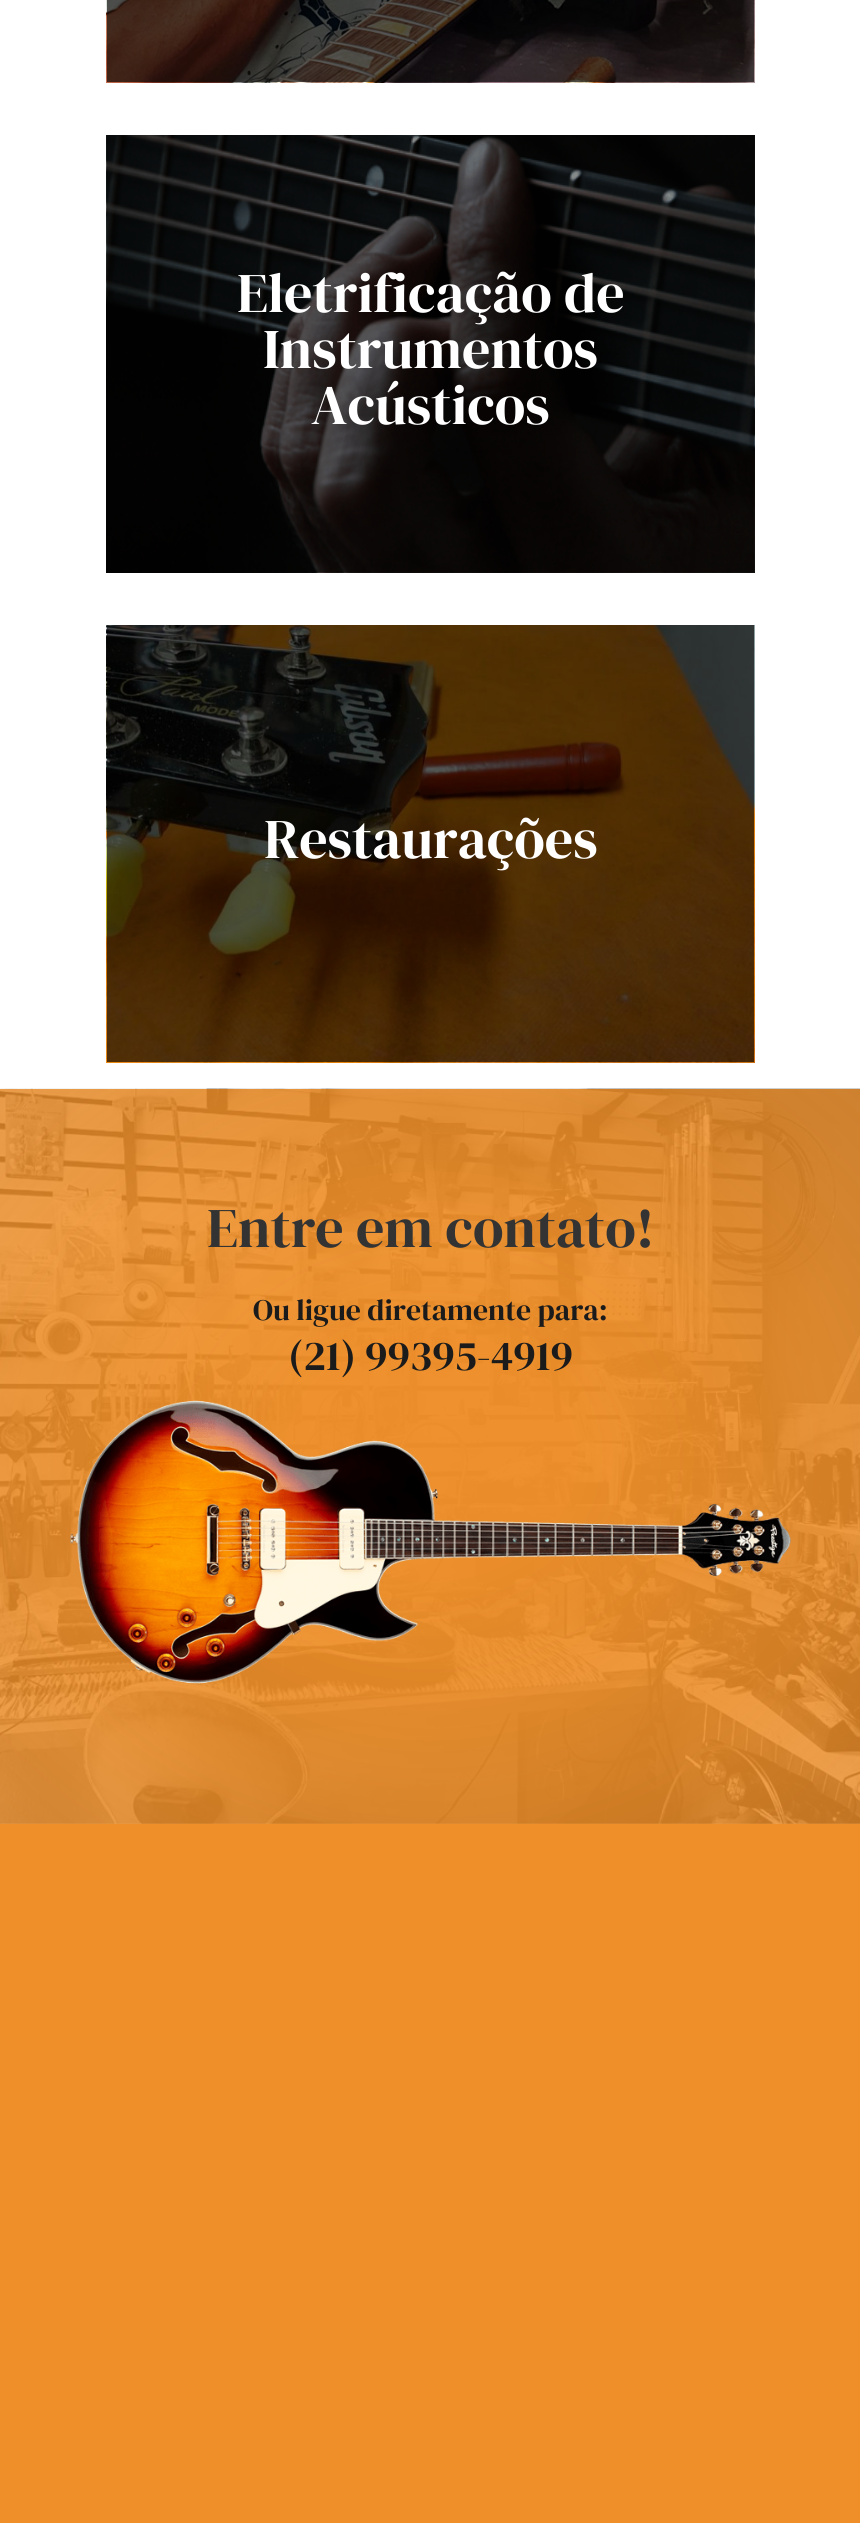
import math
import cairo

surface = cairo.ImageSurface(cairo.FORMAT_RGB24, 860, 2523)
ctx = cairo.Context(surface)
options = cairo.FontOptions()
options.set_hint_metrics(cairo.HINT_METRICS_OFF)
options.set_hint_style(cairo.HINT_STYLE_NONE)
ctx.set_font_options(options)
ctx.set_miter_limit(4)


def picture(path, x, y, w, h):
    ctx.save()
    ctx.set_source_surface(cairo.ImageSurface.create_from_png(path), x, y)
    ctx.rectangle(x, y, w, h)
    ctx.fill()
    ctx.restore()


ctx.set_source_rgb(1, 1, 1)
ctx.paint()
picture("img1.png", 106, 0, 649, 83)
picture("img2.png", 106, 135, 649, 438)
ctx.select_font_face("DM Serif Display")
ctx.set_font_size(56)
ctx.set_source_rgb(1, 1, 1)
ctx.move_to(237, 312)
ctx.show_text("Eletrificação de")
ctx.move_to(263, 368)
ctx.show_text("Instrumentos")
ctx.move_to(311, 424)
ctx.show_text("Acústicos")
picture("img3.png", 106, 625, 649, 438)
ctx.move_to(264, 858)
ctx.show_text("Restaurações")
picture("img4.png", 0, 1088, 860, 736)
gradient = cairo.RadialGradient(0, 0, 0, 0, 0, 1)
gradient.set_matrix(cairo.Matrix(1 / 609, 0, 0, 1 / 520, -1 * 431 / 609, -1 * 1456 / 520))
gradient.add_color_stop_rgba(0.23, 0.933, 0.561, 0.165, 0.98)
gradient.add_color_stop_rgba(1, 0.933, 0.561, 0.165, 0.81)
ctx.set_source(gradient)
ctx.rectangle(0, 1089, 860, 735)
ctx.fill()
ctx.set_source_rgb(0.2, 0.2, 0.2)
ctx.move_to(207, 1247)
ctx.show_text("Entre em contato!")
ctx.set_font_size(29.75)
ctx.set_source_rgb(0.106, 0.106, 0.106)
ctx.move_to(253, 1320)
ctx.show_text("Ou ligue diretamente para:")
ctx.set_font_size(42)
ctx.move_to(288, 1370)
ctx.show_text("(21) 99395-4919")
picture("img5.png", 70, 1400, 721, 284)
ctx.set_source_rgb(0.933, 0.561, 0.165)
ctx.rectangle(0, 1824, 860, 699)
ctx.fill()
surface.write_to_png("page.png")
